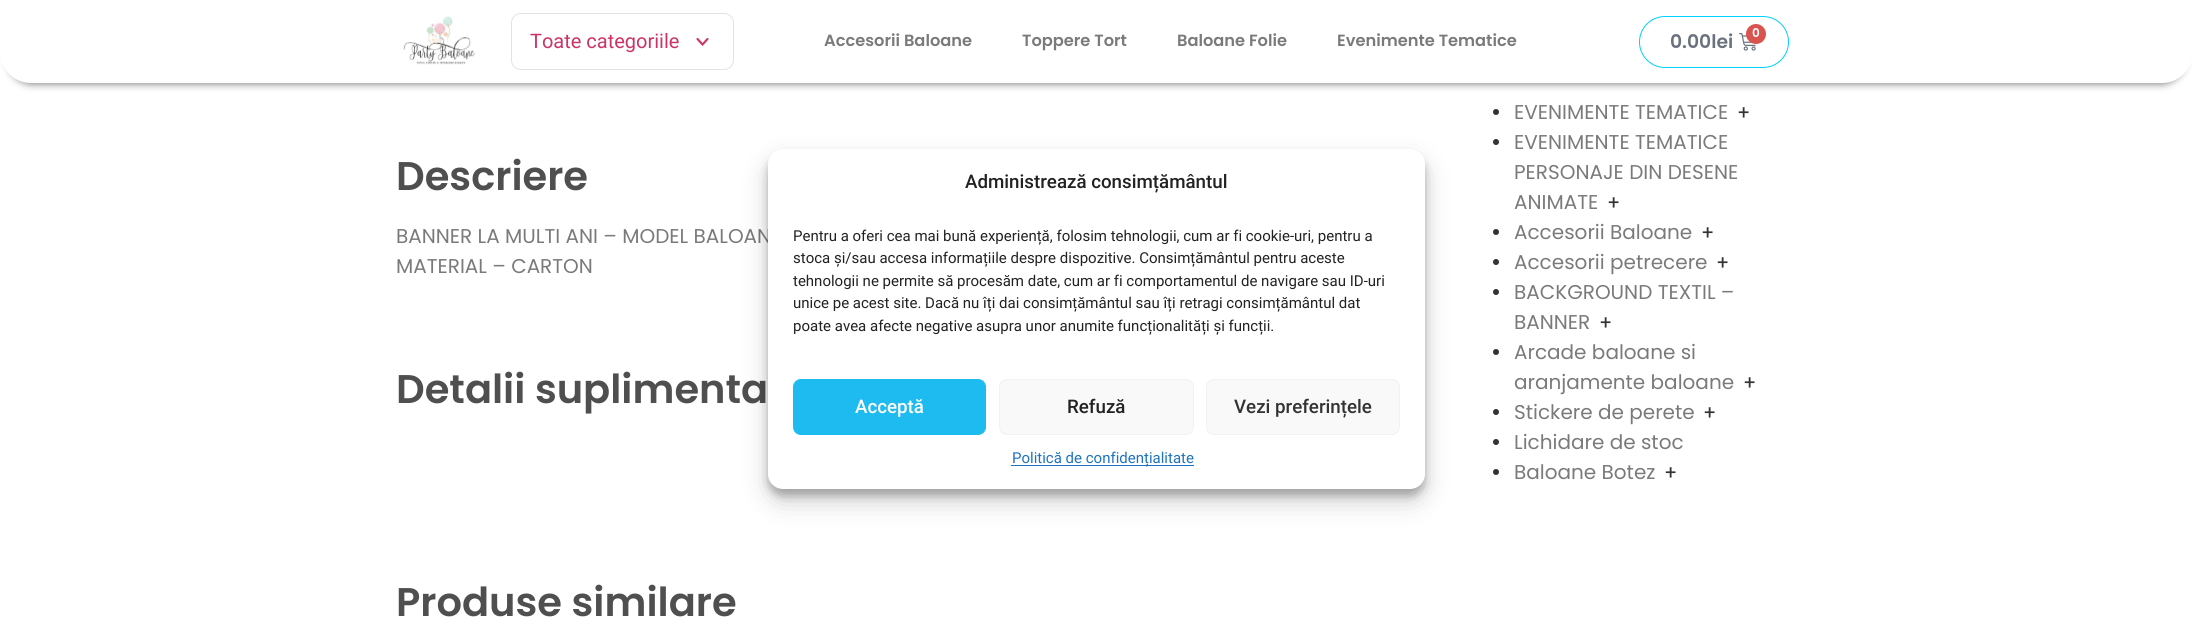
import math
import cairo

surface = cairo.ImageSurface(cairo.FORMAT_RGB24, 2192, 637)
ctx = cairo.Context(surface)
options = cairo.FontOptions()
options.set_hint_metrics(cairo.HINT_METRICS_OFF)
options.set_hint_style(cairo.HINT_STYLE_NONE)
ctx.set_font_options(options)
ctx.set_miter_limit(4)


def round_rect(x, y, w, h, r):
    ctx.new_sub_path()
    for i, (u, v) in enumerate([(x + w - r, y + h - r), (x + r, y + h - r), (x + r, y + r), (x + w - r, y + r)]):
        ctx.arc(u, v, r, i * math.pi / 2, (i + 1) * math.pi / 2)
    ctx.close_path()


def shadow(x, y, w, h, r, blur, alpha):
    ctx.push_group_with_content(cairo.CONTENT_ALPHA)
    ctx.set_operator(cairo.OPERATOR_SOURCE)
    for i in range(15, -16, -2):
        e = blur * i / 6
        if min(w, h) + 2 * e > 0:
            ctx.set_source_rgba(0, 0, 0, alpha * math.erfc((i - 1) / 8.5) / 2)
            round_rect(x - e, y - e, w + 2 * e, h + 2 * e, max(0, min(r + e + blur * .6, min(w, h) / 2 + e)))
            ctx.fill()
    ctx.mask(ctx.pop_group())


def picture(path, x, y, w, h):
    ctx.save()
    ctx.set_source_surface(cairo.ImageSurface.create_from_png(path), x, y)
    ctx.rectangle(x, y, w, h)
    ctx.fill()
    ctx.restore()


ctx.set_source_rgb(1, 1, 1)
ctx.paint()
ctx.set_source_rgb(0, 0, 0)
shadow(8, 16, 2177, 68, 24, 4, 0.5)
ctx.set_source_rgb(1, 1, 1)
ctx.new_path()
ctx.move_to(0, 0)
ctx.line_to(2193, 0)
ctx.line_to(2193, 52)
ctx.curve_to(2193, 69, 2179, 83, 2162, 83)
ctx.line_to(31, 83)
ctx.curve_to(14, 83, 0, 69, 0, 52)
ctx.close_path()
ctx.fill()
picture("img1.png", 403, 16, 73, 49)
round_rect(511.5, 13.5, 222, 56, 9.5)
ctx.set_source_rgb(0.89, 0.89, 0.89)
ctx.set_line_width(1)
ctx.stroke()
ctx.select_font_face("Roboto")
ctx.set_font_size(20)
ctx.set_source_rgb(0.8, 0.2, 0.4)
ctx.move_to(530, 48)
ctx.show_text("Toate categoriile")
ctx.new_path()
ctx.move_to(697.5, 39)
ctx.line_to(702.5, 44.5)
ctx.line_to(707.5, 39)
ctx.set_line_width(2.1)
ctx.set_line_cap(cairo.LINE_CAP_ROUND)
ctx.stroke()
ctx.select_font_face("Poppins SemiBold")
ctx.set_font_size(16.25)
ctx.set_source_rgb(0.478, 0.478, 0.478)
ctx.move_to(824, 46)
ctx.show_text("Accesorii Baloane")
ctx.move_to(1022, 46)
ctx.show_text("Toppere Tort")
ctx.move_to(1177, 46)
ctx.show_text("Baloane Folie")
ctx.move_to(1337, 46)
ctx.show_text("Evenimente Tematice")
round_rect(1639.5, 16.5, 149, 51, 25.5)
ctx.set_source_rgb(0, 0.82, 1)
ctx.set_line_width(1)
ctx.set_line_cap(cairo.LINE_CAP_BUTT)
ctx.stroke()
picture("img2.png", 1739, 33, 17, 18)
ctx.set_source_rgb(0.851, 0.325, 0.31)
ctx.arc(1756, 34, 10, 0, 2 * math.pi)
ctx.fill()
ctx.set_font_size(12)
ctx.set_source_rgb(1, 1, 1)
ctx.move_to(1752, 37)
ctx.show_text("0")
ctx.set_font_size(18.75)
ctx.set_source_rgb(0.412, 0.447, 0.49)
ctx.move_to(1670, 48)
ctx.show_text("0.00lei")
ctx.set_font_size(40)
ctx.set_source_rgb(0.31, 0.31, 0.31)
ctx.move_to(396, 190)
ctx.show_text("Descriere")
ctx.select_font_face("Poppins")
ctx.set_font_size(20)
ctx.set_source_rgb(0.478, 0.478, 0.478)
ctx.move_to(396, 243)
ctx.show_text("BANNER LA MULTI ANI – MODEL BALOAN")
ctx.move_to(396, 273)
ctx.show_text("MATERIAL – CARTON")
ctx.select_font_face("Poppins SemiBold")
ctx.set_font_size(40)
ctx.set_source_rgb(0.31, 0.31, 0.31)
ctx.move_to(396, 403)
ctx.show_text("Detalii suplimenta")
ctx.set_source_rgb(0.2, 0.2, 0.2)
ctx.new_path()
ctx.arc(1496, 112, 3, 0, 2 * math.pi)
ctx.fill()
ctx.select_font_face("Poppins")
ctx.set_font_size(20)
ctx.set_source_rgb(0.478, 0.478, 0.478)
ctx.move_to(1514, 119)
ctx.show_text("EVENIMENTE TEMATICE")
ctx.select_font_face("Roboto")
ctx.set_source_rgb(0.2, 0.2, 0.2)
ctx.move_to(1738, 119)
ctx.show_text("+")
ctx.new_path()
ctx.arc(1496, 142, 3, 0, 2 * math.pi)
ctx.fill()
ctx.select_font_face("Poppins")
ctx.set_source_rgb(0.478, 0.478, 0.478)
ctx.move_to(1514, 149)
ctx.show_text("EVENIMENTE TEMATICE")
ctx.move_to(1514, 179)
ctx.show_text("PERSONAJE DIN DESENE")
ctx.move_to(1514, 209)
ctx.show_text("ANIMATE")
ctx.select_font_face("Roboto")
ctx.set_source_rgb(0.2, 0.2, 0.2)
ctx.move_to(1608, 209)
ctx.show_text("+")
ctx.new_path()
ctx.arc(1496, 232, 3, 0, 2 * math.pi)
ctx.fill()
ctx.select_font_face("Poppins")
ctx.set_source_rgb(0.478, 0.478, 0.478)
ctx.move_to(1514, 239)
ctx.show_text("Accesorii Baloane")
ctx.select_font_face("Roboto")
ctx.set_source_rgb(0.2, 0.2, 0.2)
ctx.move_to(1702, 239)
ctx.show_text("+")
ctx.new_path()
ctx.arc(1496, 262, 3, 0, 2 * math.pi)
ctx.fill()
ctx.select_font_face("Poppins")
ctx.set_source_rgb(0.478, 0.478, 0.478)
ctx.move_to(1514, 269)
ctx.show_text("Accesorii petrecere")
ctx.select_font_face("Roboto")
ctx.set_source_rgb(0.2, 0.2, 0.2)
ctx.move_to(1717, 269)
ctx.show_text("+")
ctx.new_path()
ctx.arc(1496, 292, 3, 0, 2 * math.pi)
ctx.fill()
ctx.select_font_face("Poppins")
ctx.set_source_rgb(0.478, 0.478, 0.478)
ctx.move_to(1514, 299)
ctx.show_text("BACKGROUND TEXTIL –")
ctx.move_to(1514, 329)
ctx.show_text("BANNER")
ctx.select_font_face("Roboto")
ctx.set_source_rgb(0.2, 0.2, 0.2)
ctx.move_to(1600, 329)
ctx.show_text("+")
ctx.new_path()
ctx.arc(1496, 352, 3, 0, 2 * math.pi)
ctx.fill()
ctx.select_font_face("Poppins")
ctx.set_source_rgb(0.478, 0.478, 0.478)
ctx.move_to(1514, 359)
ctx.show_text("Arcade baloane si")
ctx.move_to(1514, 389)
ctx.show_text("aranjamente baloane")
ctx.select_font_face("Roboto")
ctx.set_source_rgb(0.2, 0.2, 0.2)
ctx.move_to(1744, 389)
ctx.show_text("+")
ctx.new_path()
ctx.arc(1496, 412, 3, 0, 2 * math.pi)
ctx.fill()
ctx.select_font_face("Poppins")
ctx.set_source_rgb(0.478, 0.478, 0.478)
ctx.move_to(1514, 419)
ctx.show_text("Stickere de perete")
ctx.select_font_face("Roboto")
ctx.set_source_rgb(0.2, 0.2, 0.2)
ctx.move_to(1704, 419)
ctx.show_text("+")
ctx.new_path()
ctx.arc(1496, 442, 3, 0, 2 * math.pi)
ctx.fill()
ctx.select_font_face("Poppins")
ctx.set_source_rgb(0.478, 0.478, 0.478)
ctx.move_to(1514, 449)
ctx.show_text("Lichidare de stoc")
ctx.set_source_rgb(0.2, 0.2, 0.2)
ctx.new_path()
ctx.arc(1496, 472, 3, 0, 2 * math.pi)
ctx.fill()
ctx.set_source_rgb(0.478, 0.478, 0.478)
ctx.move_to(1514, 479)
ctx.show_text("Baloane Botez")
ctx.select_font_face("Roboto")
ctx.set_source_rgb(0.2, 0.2, 0.2)
ctx.move_to(1665, 479)
ctx.show_text("+")
ctx.select_font_face("Poppins SemiBold")
ctx.set_font_size(40)
ctx.set_source_rgb(0.31, 0.31, 0.31)
ctx.move_to(396, 616)
ctx.show_text("Produse similare")
ctx.set_source_rgb(0, 0, 0)
shadow(768, 156, 657, 340, 15, 4, 0.23)
shadow(768, 161, 657, 340, 15, 12.5, 0.19)
ctx.set_source_rgb(1, 1, 1)
round_rect(768, 149, 657, 340, 15)
ctx.fill()
ctx.select_font_face("Roboto Medium")
ctx.set_font_size(18.75)
ctx.set_source_rgb(0.133, 0.133, 0.133)
ctx.move_to(965, 188)
ctx.show_text("Administrează consimțământul")
ctx.select_font_face("Roboto")
ctx.set_font_size(15)
ctx.move_to(793, 241)
ctx.show_text("Pentru a oferi cea mai bună experiență, folosim tehnologii, cum ar fi cookie-uri, pentru a")
ctx.move_to(793, 263)
ctx.show_text("stoca și/sau accesa informațiile despre dispozitive. Consimțământul pentru aceste")
ctx.move_to(793, 286)
ctx.show_text("tehnologii ne permite să procesăm date, cum ar fi comportamentul de navigare sau ID-uri")
ctx.move_to(793, 308)
ctx.show_text("unice pe acest site. Dacă nu îți dai consimțământul sau îți retragi consimțământul dat")
ctx.move_to(793, 331)
ctx.show_text("poate avea afecte negative asupra unor anumite funcționalități și funcții.")
ctx.set_source_rgb(0.118, 0.733, 0.941)
round_rect(793.5, 379.5, 192, 55, 7.5)
ctx.fill_preserve()
ctx.stroke()
ctx.select_font_face("Roboto Medium")
ctx.set_font_size(18.75)
ctx.set_source_rgb(1, 1, 1)
ctx.move_to(855, 413)
ctx.show_text("Acceptă")
ctx.set_source_rgb(0.976, 0.976, 0.976)
round_rect(999.5, 379.5, 194, 55, 7.5)
ctx.fill_preserve()
ctx.set_source_rgb(0.949, 0.949, 0.949)
ctx.stroke()
ctx.set_source_rgb(0.133, 0.133, 0.133)
ctx.move_to(1067, 413)
ctx.show_text("Refuză")
ctx.set_source_rgb(0.976, 0.976, 0.976)
round_rect(1206.5, 379.5, 193, 55, 7.5)
ctx.fill_preserve()
ctx.set_source_rgb(0.949, 0.949, 0.949)
ctx.stroke()
ctx.set_source_rgb(0.2, 0.2, 0.2)
ctx.move_to(1234, 413)
ctx.show_text("Vezi preferințele")
ctx.set_source_rgb(0.118, 0.451, 0.745)
ctx.rectangle(1011, 465, 183, 1)
ctx.fill()
ctx.select_font_face("Roboto")
ctx.set_font_size(15)
ctx.move_to(1012, 463)
ctx.show_text("Politică de confidențialitate")
surface.write_to_png("page.png")
